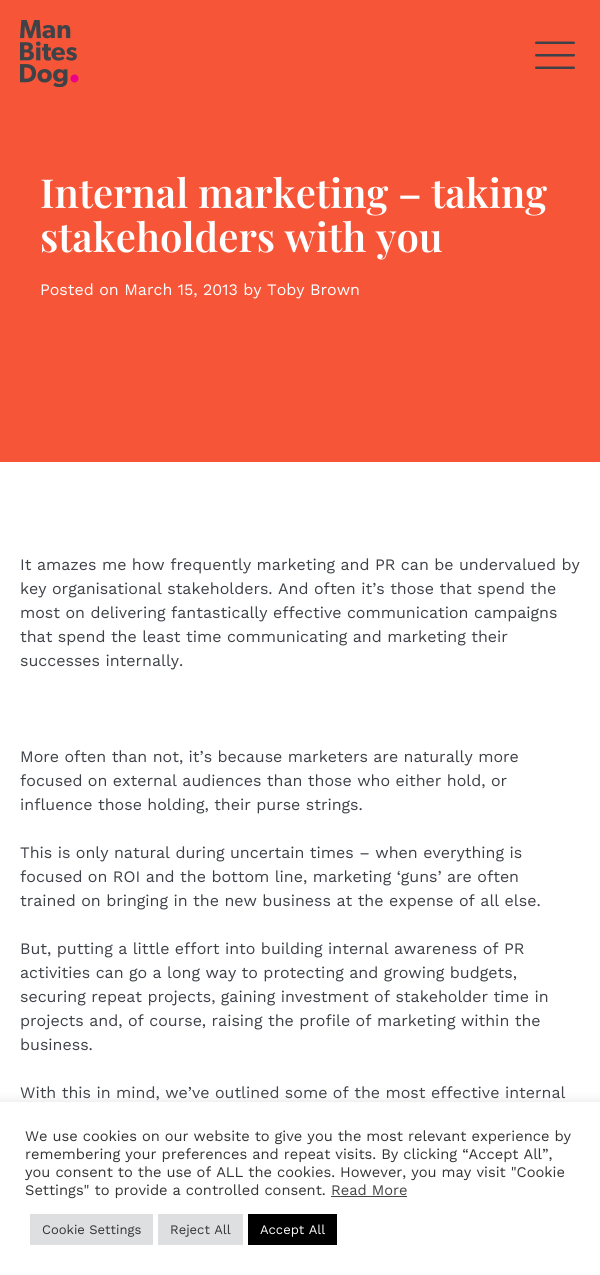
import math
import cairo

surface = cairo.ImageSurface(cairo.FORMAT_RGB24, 600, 1275)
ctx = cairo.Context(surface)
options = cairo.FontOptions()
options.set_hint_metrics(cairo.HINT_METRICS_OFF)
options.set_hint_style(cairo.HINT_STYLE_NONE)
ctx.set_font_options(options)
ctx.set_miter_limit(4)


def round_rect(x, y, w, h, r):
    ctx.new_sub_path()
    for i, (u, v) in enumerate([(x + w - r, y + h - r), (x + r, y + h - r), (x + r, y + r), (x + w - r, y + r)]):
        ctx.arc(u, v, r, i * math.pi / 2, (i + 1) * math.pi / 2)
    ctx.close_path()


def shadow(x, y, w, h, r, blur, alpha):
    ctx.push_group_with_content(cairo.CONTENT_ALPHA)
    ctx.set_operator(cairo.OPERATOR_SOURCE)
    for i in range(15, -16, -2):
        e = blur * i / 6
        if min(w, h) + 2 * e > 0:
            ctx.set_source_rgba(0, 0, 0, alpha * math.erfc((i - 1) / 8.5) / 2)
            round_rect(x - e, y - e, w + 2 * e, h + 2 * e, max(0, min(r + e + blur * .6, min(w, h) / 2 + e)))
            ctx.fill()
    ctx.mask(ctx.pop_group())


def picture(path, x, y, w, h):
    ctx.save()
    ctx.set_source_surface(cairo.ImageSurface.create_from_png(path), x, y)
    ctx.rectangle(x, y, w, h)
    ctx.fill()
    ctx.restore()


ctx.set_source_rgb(1, 1, 1)
ctx.paint()
ctx.set_source_rgb(0.965, 0.333, 0.22)
ctx.rectangle(0, 0, 600, 462)
ctx.fill()
picture("img1.png", 20, 20, 59, 67)
picture("img2.png", 535, 41, 40, 28)
ctx.select_font_face("Playfair Display SemiBold")
ctx.set_font_size(40)
ctx.set_source_rgb(1, 1, 1)
ctx.move_to(40, 208)
ctx.show_text("Internal marketing – taking")
ctx.move_to(40, 252)
ctx.show_text("stakeholders with you")
ctx.select_font_face("Work Sans")
ctx.set_font_size(16)
ctx.move_to(40, 295)
ctx.show_text("Posted on March 15, 2013 by Toby Brown")
ctx.set_source_rgb(0.243, 0.255, 0.278)
ctx.move_to(20, 570)
ctx.show_text("It amazes me how frequently marketing and PR can be undervalued by")
ctx.move_to(20, 594)
ctx.show_text("key organisational stakeholders. And often it’s those that spend the")
ctx.move_to(20, 618)
ctx.show_text("most on delivering fantastically effective communication campaigns")
ctx.move_to(20, 642)
ctx.show_text("that spend the least time communicating and marketing their")
ctx.move_to(20, 666)
ctx.show_text("successes internally.")
ctx.move_to(20, 762)
ctx.show_text("More often than not, it’s because marketers are naturally more")
ctx.move_to(20, 786)
ctx.show_text("focused on external audiences than those who either hold, or")
ctx.move_to(20, 810)
ctx.show_text("influence those holding, their purse strings.")
ctx.move_to(20, 858)
ctx.show_text("This is only natural during uncertain times – when everything is")
ctx.move_to(20, 882)
ctx.show_text("focused on ROI and the bottom line, marketing ‘guns’ are often")
ctx.move_to(20, 906)
ctx.show_text("trained on bringing in the new business at the expense of all else.")
ctx.move_to(20, 954)
ctx.show_text("But, putting a little effort into building internal awareness of PR")
ctx.move_to(20, 978)
ctx.show_text("activities can go a long way to protecting and growing budgets,")
ctx.move_to(20, 1002)
ctx.show_text("securing repeat projects, gaining investment of stakeholder time in")
ctx.move_to(20, 1026)
ctx.show_text("projects and, of course, raising the profile of marketing within the")
ctx.move_to(20, 1050)
ctx.show_text("business.")
ctx.move_to(20, 1098)
ctx.show_text("With this in mind, we’ve outlined some of the most effective internal")
ctx.set_source_rgb(0.675, 0.671, 0.671)
shadow(0, 1101, 600, 173, 0, 5, 0.3)
ctx.set_source_rgb(1, 1, 1)
ctx.rectangle(0, 1102, 600, 173)
ctx.fill()
ctx.set_font_size(14.65)
ctx.set_source_rgb(0.2, 0.2, 0.2)
ctx.move_to(25, 1141)
ctx.show_text("We use cookies on our website to give you the most relevant experience by")
ctx.move_to(25, 1159)
ctx.show_text("remembering your preferences and repeat visits. By clicking “Accept All”,")
ctx.move_to(25, 1177)
ctx.show_text("you consent to the use of ALL the cookies. However, you may visit \"Cookie")
ctx.move_to(25, 1195)
ctx.show_text("Settings\" to provide a controlled consent.")
ctx.set_source_rgb(0.267, 0.267, 0.267)
ctx.move_to(331, 1195)
ctx.show_text("Read More")
ctx.rectangle(331, 1196, 76, 1)
ctx.fill()
ctx.set_source_rgb(0.871, 0.875, 0.878)
ctx.rectangle(30, 1214, 123, 31)
ctx.fill()
ctx.set_font_size(13)
ctx.set_source_rgb(0.2, 0.2, 0.2)
ctx.move_to(42, 1234)
ctx.show_text("Cookie Settings")
ctx.set_source_rgb(0.871, 0.875, 0.878)
ctx.rectangle(158, 1214, 85, 31)
ctx.fill()
ctx.set_source_rgb(0.2, 0.2, 0.2)
ctx.move_to(170, 1234)
ctx.show_text("Reject All")
ctx.set_source_rgb(0, 0, 0)
ctx.rectangle(248, 1214, 89, 31)
ctx.fill()
ctx.set_source_rgb(1, 1, 1)
ctx.move_to(260, 1234)
ctx.show_text("Accept All")
surface.write_to_png("page.png")
